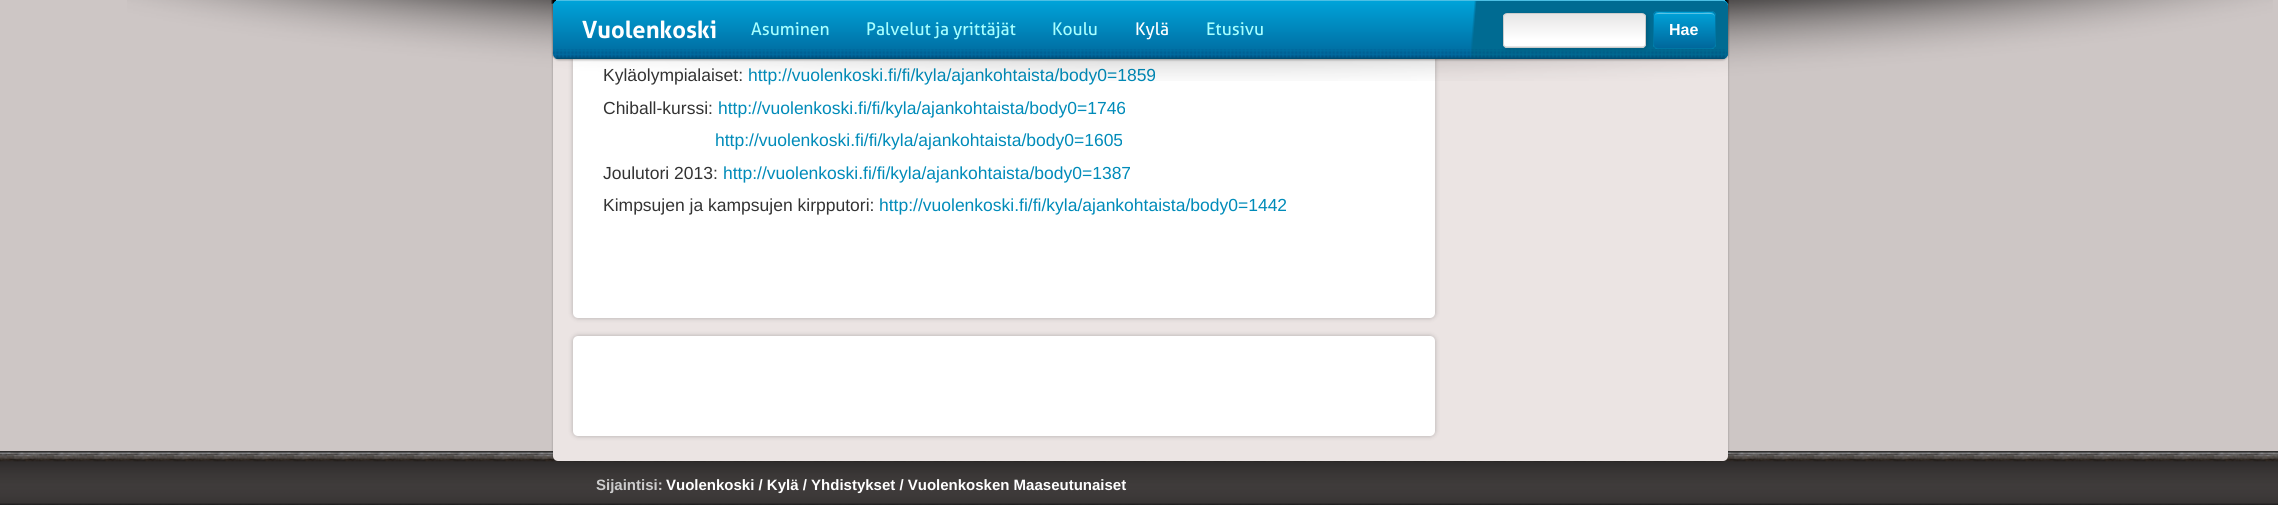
import math
import cairo

surface = cairo.ImageSurface(cairo.FORMAT_RGB24, 2278, 505)
ctx = cairo.Context(surface)
options = cairo.FontOptions()
options.set_hint_metrics(cairo.HINT_METRICS_OFF)
options.set_hint_style(cairo.HINT_STYLE_NONE)
ctx.set_font_options(options)
ctx.set_miter_limit(4)


def round_rect(x, y, w, h, r):
    ctx.new_sub_path()
    for i, (u, v) in enumerate([(x + w - r, y + h - r), (x + r, y + h - r), (x + r, y + r), (x + w - r, y + r)]):
        ctx.arc(u, v, r, i * math.pi / 2, (i + 1) * math.pi / 2)
    ctx.close_path()


def shadow(x, y, w, h, r, blur, alpha):
    ctx.push_group_with_content(cairo.CONTENT_ALPHA)
    ctx.set_operator(cairo.OPERATOR_SOURCE)
    for i in range(15, -16, -2):
        e = blur * i / 6
        if min(w, h) + 2 * e > 0:
            ctx.set_source_rgba(0, 0, 0, alpha * math.erfc((i - 1) / 8.5) / 2)
            round_rect(x - e, y - e, w + 2 * e, h + 2 * e, max(0, min(r + e + blur * .6, min(w, h) / 2 + e)))
            ctx.fill()
    ctx.mask(ctx.pop_group())


def picture(path, x, y, w, h):
    ctx.save()
    ctx.set_source_surface(cairo.ImageSurface.create_from_png(path), x, y)
    ctx.rectangle(x, y, w, h)
    ctx.fill()
    ctx.restore()


ctx.set_source_rgb(0.804, 0.776, 0.773)
ctx.paint()
ctx.set_source_rgb(0.482, 0.455, 0.451)
ctx.rectangle(0, 451, 2278, 53)
ctx.fill()
picture("img3.png", 0, 451, 2278, 54)
ctx.set_source_rgb(0, 0, 0)
shadow(553, -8, 1175, 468, 5, 1, 0.3)
ctx.set_source_rgb(0.918, 0.894, 0.89)
round_rect(553, -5, 1175, 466, 5)
ctx.fill()
ctx.set_source_rgb(0, 0, 0)
shadow(573, -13, 862, 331, 5, 2.5, 0.25)
ctx.set_source_rgb(1, 1, 1)
round_rect(573, -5, 862, 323, 5)
ctx.fill()
ctx.select_font_face("Liberation Sans")
ctx.set_font_size(17.5)
ctx.set_source_rgb(0.2, 0.2, 0.2)
ctx.move_to(603, 81)
ctx.show_text("Kyläolympialaiset:")
ctx.set_source_rgb(0, 0.545, 0.725)
ctx.move_to(748, 81)
ctx.show_text("http://vuolenkoski.fi/fi/kyla/ajankohtaista/body0=1859")
picture("img1.png", 127, 0, 2146, 81)
ctx.set_source_rgb(0, 0, 0)
shadow(553, 1, 1175, 59, 6, 1, 0.3)
ctx.set_source_rgb(0, 0.639, 0.851)
round_rect(553, 0, 1175, 59, 6)
ctx.fill()
ctx.save()
round_rect(553, 0, 1175, 59, 6)
ctx.clip()
gradient = cairo.LinearGradient(1140, 1.2, 1140, 59)
gradient.add_color_stop_rgba(0, 0, 0.639, 0.851, 1)
gradient.add_color_stop_rgba(1, 0, 0.404, 0.608, 1)
ctx.set_source(gradient)
ctx.new_path()
ctx.move_to(553, 1)
ctx.line_to(1728, 1)
ctx.line_to(1728, 53)
ctx.curve_to(1728, 56.5, 1725.5, 59, 1722, 59)
ctx.line_to(559, 59)
ctx.curve_to(555.5, 59, 553, 56.5, 553, 53)
ctx.close_path()
ctx.fill()
ctx.restore()
ctx.set_source_rgb(0.302, 0.749, 0.894)
ctx.rectangle(556, 0, 1169, 1)
ctx.fill()
ctx.select_font_face("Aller", cairo.FONT_SLANT_NORMAL, cairo.FONT_WEIGHT_BOLD)
ctx.set_font_size(23.75)
ctx.set_source_rgb(1, 1, 1)
ctx.move_to(582, 38)
ctx.show_text("Vuolenkoski")
ctx.select_font_face("Aller")
ctx.set_font_size(17.5)
ctx.set_source_rgb(0.655, 1, 1)
ctx.move_to(751, 35)
ctx.show_text("Asuminen")
ctx.move_to(866, 35)
ctx.show_text("Palvelut ja yrittäjät")
ctx.move_to(1052, 35)
ctx.show_text("Koulu")
ctx.set_source_rgb(1, 1, 1)
ctx.move_to(1135, 35)
ctx.show_text("Kylä")
ctx.set_source_rgb(0.655, 1, 1)
ctx.move_to(1206, 35)
ctx.show_text("Etusivu")
gradient = cairo.LinearGradient(1470, 19, 1729, 41)
gradient.add_color_stop_rgba(0.01, 0, 0.42, 0.573, 0)
gradient.add_color_stop_rgba(0.02, 0, 0.42, 0.573, 1)
ctx.set_source(gradient)
ctx.new_path()
ctx.move_to(1471, 1)
ctx.line_to(1722, 1)
ctx.curve_to(1725.5, 1, 1728, 3.5, 1728, 7)
ctx.line_to(1728, 53)
ctx.curve_to(1728, 56.5, 1725.5, 59, 1722, 59)
ctx.line_to(1471, 59)
ctx.close_path()
ctx.fill()
ctx.set_source_rgb(0, 0, 0)
shadow(1504, 14, 144, 35, 4, 2, 0.15)
ctx.save()
round_rect(1503, 13, 143, 35, 4)
ctx.clip()
gradient = cairo.LinearGradient(1574, 46, 1574, 14)
gradient.add_color_stop_rgba(0.2, 1, 1, 1, 1)
gradient.add_color_stop_rgba(1, 0.906, 0.902, 0.902, 1)
ctx.set_source(gradient)
ctx.rectangle(1503, 14, 143, 32)
ctx.fill()
gradient = cairo.LinearGradient(1574, 79, 1574, 46)
gradient.add_color_stop_rgba(0.2, 1, 1, 1, 1)
gradient.add_color_stop_rgba(1, 0.906, 0.902, 0.902, 1)
ctx.set_source(gradient)
ctx.rectangle(1503, 46, 143, 2)
ctx.fill()
ctx.restore()
round_rect(1503.5, 13.5, 142, 34, 3.5)
ctx.set_source_rgb(0.8, 0.8, 0.8)
ctx.set_line_width(1)
ctx.stroke()
ctx.set_source_rgb(0, 0.639, 0.851)
round_rect(1653, 11, 63, 38, 5)
ctx.fill()
gradient = cairo.LinearGradient(1684, 12, 1684, 48)
gradient.add_color_stop_rgba(0, 0, 0.639, 0.851, 1)
gradient.add_color_stop_rgba(1, 0, 0.404, 0.608, 1)
ctx.set_source(gradient)
ctx.rectangle(1654, 13, 61, 35)
ctx.fill()
ctx.set_source_rgb(0.349, 0.761, 0.894)
ctx.new_path()
ctx.move_to(1658, 14)
ctx.line_to(1711, 14)
ctx.curve_to(1713, 14, 1715, 15, 1715, 18)
ctx.curve_to(1715, 11, 1707, 13, 1702, 13)
ctx.line_to(1667, 13)
ctx.curve_to(1662, 13, 1654, 11, 1654, 18)
ctx.curve_to(1654, 15, 1655, 14, 1658, 14)
ctx.close_path()
ctx.fill()
round_rect(1653.5, 11.5, 62, 37, 4.5)
ctx.set_source_rgb(0, 0.467, 0.643)
ctx.stroke()
ctx.select_font_face("Liberation Sans", cairo.FONT_SLANT_NORMAL, cairo.FONT_WEIGHT_BOLD)
ctx.set_font_size(16)
ctx.set_source_rgb(1, 1, 1)
ctx.move_to(1669, 35)
ctx.show_text("Hae")
picture("img2.png", 552, 49, 1176, 10)
ctx.select_font_face("Liberation Sans")
ctx.set_font_size(17.5)
ctx.set_source_rgb(0.2, 0.2, 0.2)
ctx.move_to(603, 114)
ctx.show_text("Chiball-kurssi:")
ctx.set_source_rgb(0, 0.545, 0.725)
ctx.move_to(718, 114)
ctx.show_text("http://vuolenkoski.fi/fi/kyla/ajankohtaista/body0=1746")
ctx.move_to(715, 146)
ctx.show_text("http://vuolenkoski.fi/fi/kyla/ajankohtaista/body0=1605")
ctx.set_source_rgb(0.2, 0.2, 0.2)
ctx.move_to(603, 179)
ctx.show_text("Joulutori 2013:")
ctx.set_source_rgb(0, 0.545, 0.725)
ctx.move_to(723, 179)
ctx.show_text("http://vuolenkoski.fi/fi/kyla/ajankohtaista/body0=1387")
ctx.set_source_rgb(0.2, 0.2, 0.2)
ctx.move_to(603, 211)
ctx.show_text("Kimpsujen ja kampsujen kirpputori:")
ctx.set_source_rgb(0, 0.545, 0.725)
ctx.move_to(879, 211)
ctx.show_text("http://vuolenkoski.fi/fi/kyla/ajankohtaista/body0=1442")
ctx.set_source_rgb(0, 0, 0)
shadow(573, 336, 862, 100, 5, 2.5, 0.25)
ctx.set_source_rgb(1, 1, 1)
round_rect(573, 336, 862, 100, 5)
ctx.fill()
ctx.select_font_face("Liberation Sans", cairo.FONT_SLANT_NORMAL, cairo.FONT_WEIGHT_BOLD)
ctx.set_font_size(15)
ctx.set_source_rgb(0.8, 0.8, 0.8)
ctx.move_to(596, 490)
ctx.show_text("Sijaintisi:")
ctx.set_source_rgb(1, 1, 1)
ctx.move_to(666, 490)
ctx.show_text("Vuolenkoski / Kylä / Yhdistykset / Vuolenkosken Maaseutunaiset")
surface.write_to_png("page.png")
